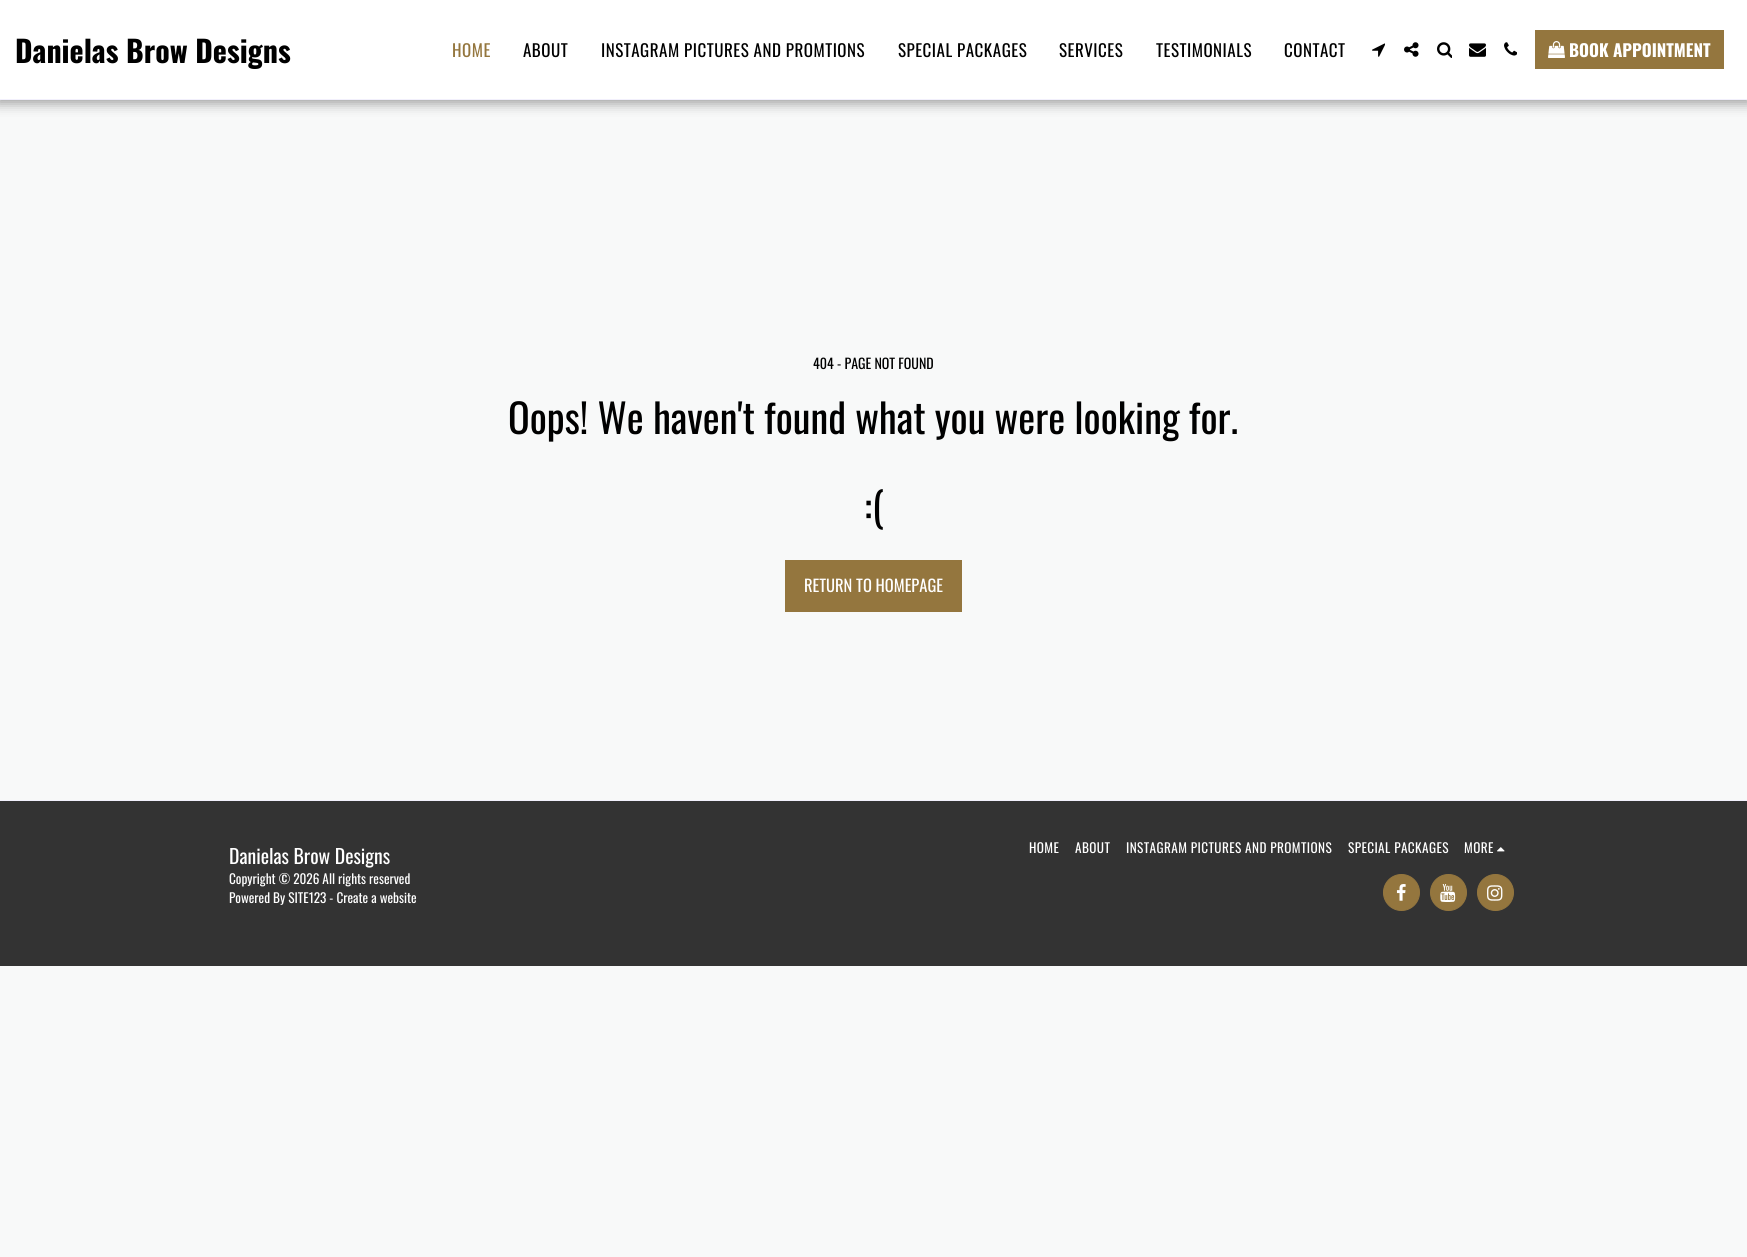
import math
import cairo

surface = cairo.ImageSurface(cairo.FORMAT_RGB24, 1747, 1257)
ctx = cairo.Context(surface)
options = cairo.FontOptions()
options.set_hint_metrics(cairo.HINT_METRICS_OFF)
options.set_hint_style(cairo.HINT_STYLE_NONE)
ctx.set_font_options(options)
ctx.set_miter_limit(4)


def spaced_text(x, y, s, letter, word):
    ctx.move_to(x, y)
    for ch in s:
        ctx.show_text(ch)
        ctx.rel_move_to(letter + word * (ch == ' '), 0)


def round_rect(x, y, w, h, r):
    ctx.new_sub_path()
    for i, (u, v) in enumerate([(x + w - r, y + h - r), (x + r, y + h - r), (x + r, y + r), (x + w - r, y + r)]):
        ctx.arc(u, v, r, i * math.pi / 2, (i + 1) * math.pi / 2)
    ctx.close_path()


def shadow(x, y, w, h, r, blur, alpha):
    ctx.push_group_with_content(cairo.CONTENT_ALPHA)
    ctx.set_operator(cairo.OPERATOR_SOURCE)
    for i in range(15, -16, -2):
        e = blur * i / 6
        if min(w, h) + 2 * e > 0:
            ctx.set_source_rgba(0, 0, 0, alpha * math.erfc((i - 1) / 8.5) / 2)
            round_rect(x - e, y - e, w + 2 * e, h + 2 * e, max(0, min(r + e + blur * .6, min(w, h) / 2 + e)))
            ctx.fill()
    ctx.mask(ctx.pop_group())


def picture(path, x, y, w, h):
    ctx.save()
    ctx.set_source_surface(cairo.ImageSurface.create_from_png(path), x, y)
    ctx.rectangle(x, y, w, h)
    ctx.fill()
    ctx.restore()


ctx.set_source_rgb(0.969, 0.976, 0.973)
ctx.paint()
ctx.set_source_rgb(0, 0, 0)
shadow(-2, 0, 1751, 104, 0, 6, 0.35)
ctx.set_source_rgb(1, 1, 1)
ctx.rectangle(0, 0, 1747, 99)
ctx.fill()
ctx.set_source_rgb(0.949, 0.941, 0.988)
ctx.rectangle(0, 99, 1747, 1)
ctx.fill()
ctx.select_font_face("Oswald", cairo.FONT_SLANT_NORMAL, cairo.FONT_WEIGHT_BOLD)
ctx.set_font_size(30)
ctx.set_source_rgb(0, 0, 0)
ctx.move_to(15, 63)
ctx.show_text("Danielas Brow Designs")
ctx.select_font_face("Oswald")
ctx.set_font_size(17)
ctx.set_source_rgb(0.58, 0.463, 0.243)
spaced_text(452, 57, "HOME", 0.5, 0)
ctx.set_source_rgb(0, 0, 0)
spaced_text(523, 57, "ABOUT", 0.5, 0)
spaced_text(601, 57, "INSTAGRAM PICTURES AND PROMTIONS", 0.5, 0)
spaced_text(898, 57, "SPECIAL PACKAGES", 0.5, 0)
spaced_text(1059, 57, "SERVICES", 0.5, 0)
spaced_text(1156, 57, "TESTIMONIALS", 0.5, 0)
spaced_text(1284, 57, "CONTACT", 0.5, 0)
picture("img1.png", 1372, 43, 13, 14)
picture("img2.png", 1404, 42, 15, 15)
picture("img3.png", 1437, 42, 15, 16)
picture("img4.png", 1469, 43, 17, 14)
picture("img5.png", 1504, 42, 13, 14)
ctx.set_source_rgb(0.58, 0.463, 0.243)
ctx.rectangle(1535, 30, 189, 39)
ctx.fill()
picture("img6.png", 1548, 41, 17, 17)
ctx.select_font_face("Oswald", cairo.FONT_SLANT_NORMAL, cairo.FONT_WEIGHT_BOLD)
ctx.set_source_rgb(1, 1, 1)
ctx.move_to(1569, 57)
ctx.show_text("BOOK APPOINTMENT")
ctx.select_font_face("Oswald")
ctx.set_font_size(14)
ctx.set_source_rgb(0, 0, 0)
ctx.move_to(813, 369)
ctx.show_text("404 - PAGE NOT FOUND")
ctx.set_font_size(40.25)
ctx.move_to(508, 434)
ctx.show_text("Oops! We haven't found what you were looking for.")
ctx.move_to(864, 522)
ctx.show_text(":(")
ctx.set_source_rgb(0.58, 0.463, 0.243)
ctx.rectangle(785, 560, 177, 52)
ctx.fill()
ctx.set_font_size(16.5)
ctx.set_source_rgb(1, 1, 1)
ctx.move_to(804, 592)
ctx.show_text("RETURN TO HOMEPAGE")
ctx.set_source_rgb(0.2, 0.2, 0.2)
ctx.rectangle(0, 801, 1747, 165)
ctx.fill()
ctx.set_source_rgb(0.949, 0.941, 0.988)
ctx.rectangle(0, 800, 1747, 1)
ctx.fill()
ctx.set_font_size(19.75)
ctx.set_source_rgb(1, 1, 1)
ctx.move_to(229, 864)
ctx.show_text("Danielas Brow Designs")
ctx.set_font_size(13.25)
ctx.move_to(229, 884)
ctx.show_text("Copyright © 2026 All rights reserved")
ctx.move_to(229, 903)
ctx.show_text("Powered By SITE123 - Create a website")
spaced_text(1029, 853, "HOME", 0.4, 0)
spaced_text(1075, 853, "ABOUT", 0.4, 0)
spaced_text(1126, 853, "INSTAGRAM PICTURES AND PROMTIONS", 0.4, 0)
spaced_text(1348, 853, "SPECIAL PACKAGES", 0.4, 0)
spaced_text(1464, 853, "MORE", 0.4, 0)
picture("img7.png", 1497, 847, 8, 5)
ctx.set_source_rgb(0.58, 0.463, 0.243)
ctx.arc(1401.5, 892.5, 18, 0, 2 * math.pi)
ctx.fill_preserve()
ctx.set_line_width(1)
ctx.stroke()
picture("img8.png", 1396, 884, 10, 17)
ctx.arc(1448.5, 892.5, 18, 0, 2 * math.pi)
ctx.fill_preserve()
ctx.stroke()
picture("img9.png", 1440, 884, 16, 18)
ctx.arc(1495.5, 892.5, 18, 0, 2 * math.pi)
ctx.fill_preserve()
ctx.stroke()
picture("img10.png", 1487, 885, 16, 16)
surface.write_to_png("page.png")
